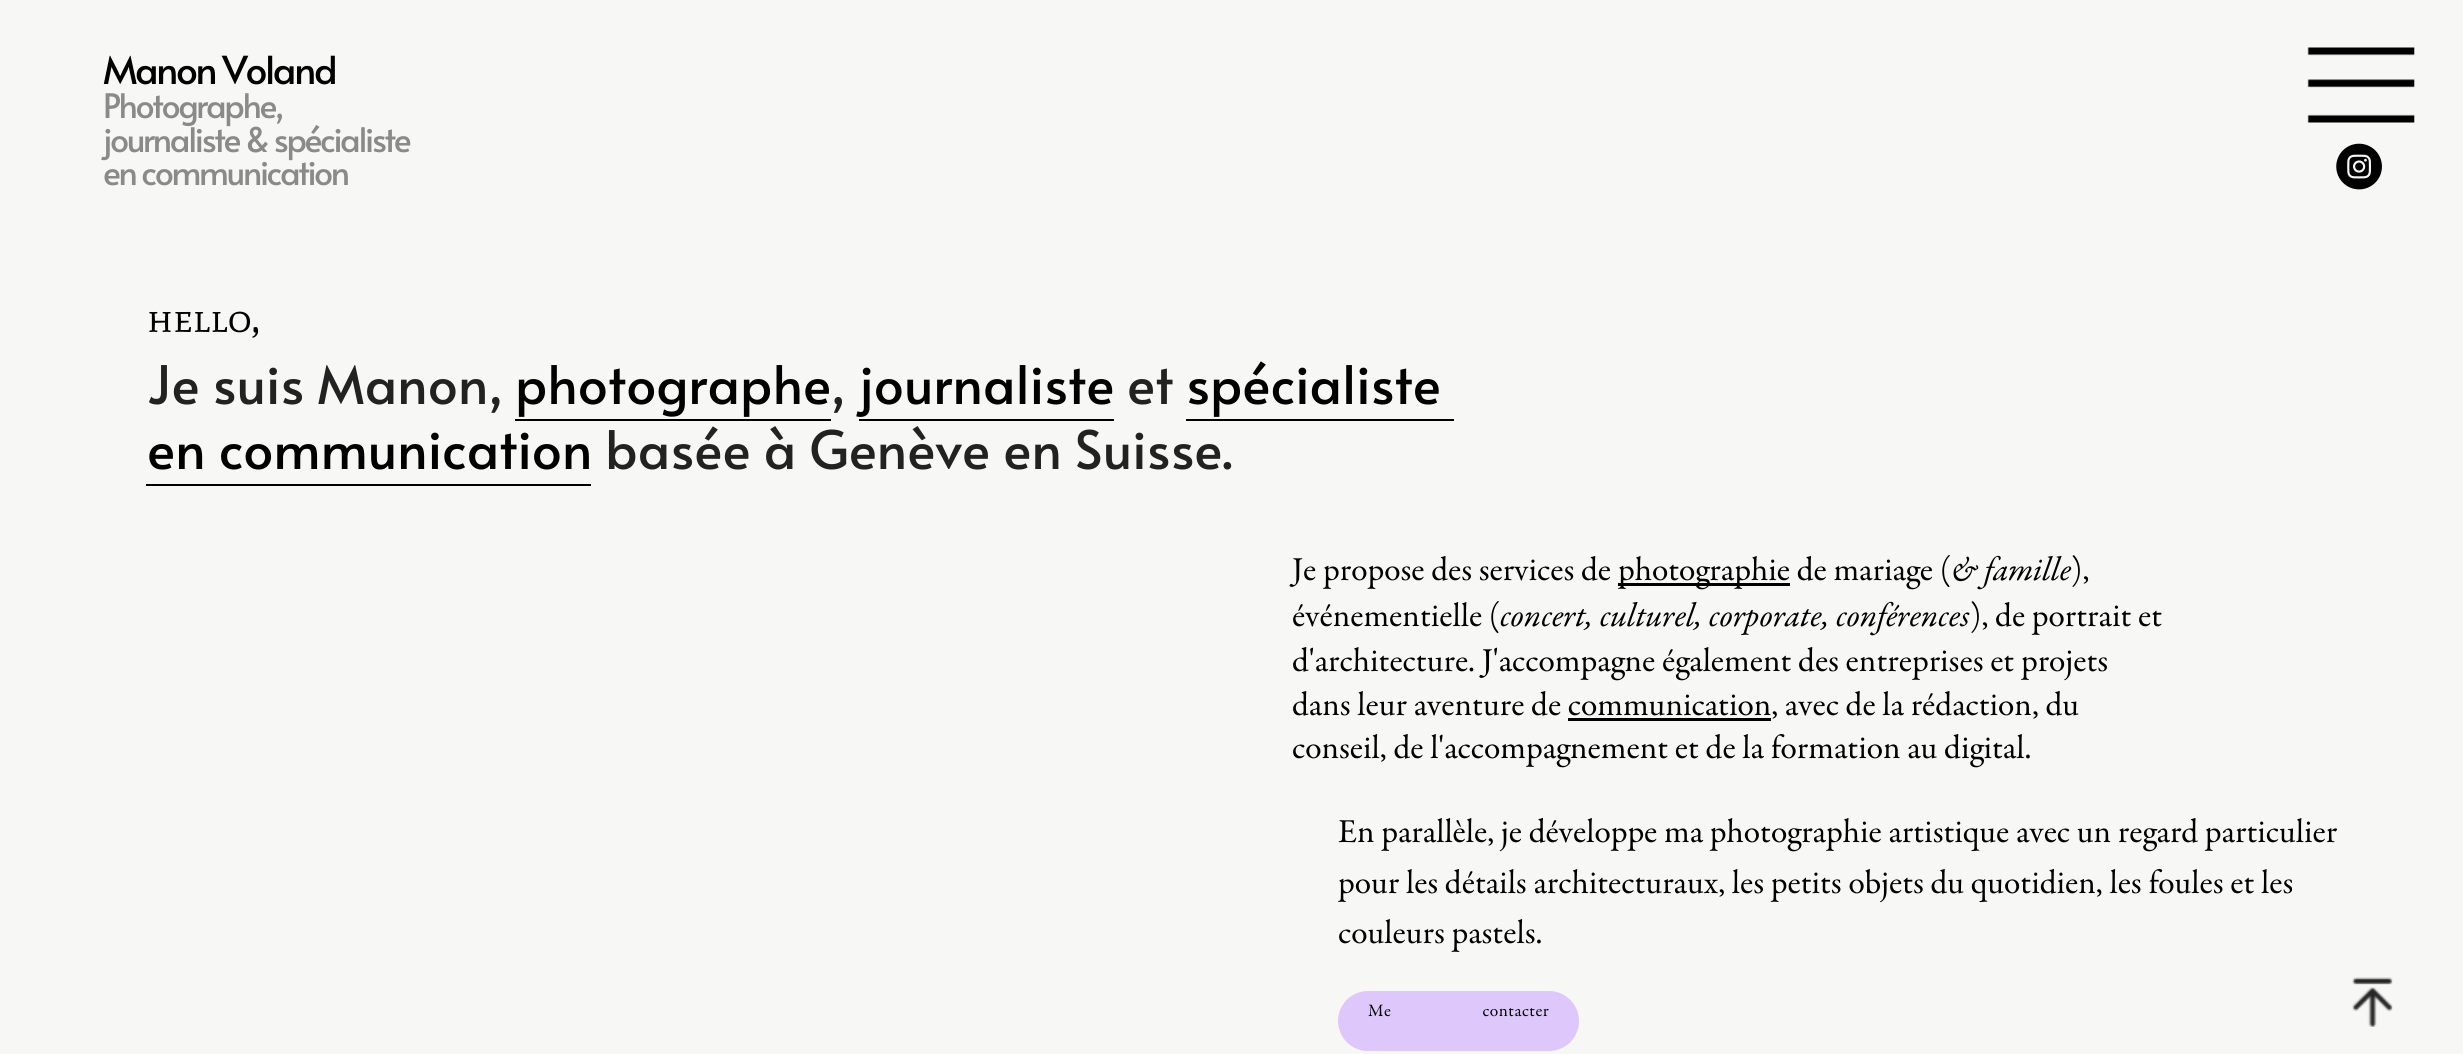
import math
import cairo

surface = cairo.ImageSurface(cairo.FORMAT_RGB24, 2463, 1054)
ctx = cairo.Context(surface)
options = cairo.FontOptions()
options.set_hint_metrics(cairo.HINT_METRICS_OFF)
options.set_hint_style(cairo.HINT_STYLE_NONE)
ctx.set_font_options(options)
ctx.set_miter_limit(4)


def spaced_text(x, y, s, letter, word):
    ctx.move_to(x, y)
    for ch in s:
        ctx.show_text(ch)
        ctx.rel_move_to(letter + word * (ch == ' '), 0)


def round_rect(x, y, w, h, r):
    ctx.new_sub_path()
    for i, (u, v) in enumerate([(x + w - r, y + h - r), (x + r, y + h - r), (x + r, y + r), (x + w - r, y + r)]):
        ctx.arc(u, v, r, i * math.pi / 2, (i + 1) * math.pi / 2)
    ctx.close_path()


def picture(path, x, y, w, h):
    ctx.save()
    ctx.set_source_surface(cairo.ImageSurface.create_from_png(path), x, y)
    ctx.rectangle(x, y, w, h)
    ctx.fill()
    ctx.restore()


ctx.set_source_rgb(0.965, 0.965, 0.961)
ctx.paint()
ctx.select_font_face("Alata")
ctx.set_font_size(38.5)
ctx.set_source_rgb(0, 0, 0)
spaced_text(103, 84, "Manon Voland", -2.4, 0)
picture("img1.png", 2307, 47, 108, 76)
ctx.set_font_size(33.7)
ctx.set_source_rgb(0.541, 0.541, 0.537)
spaced_text(103, 118, "Photographe,", -2.4, 0)
spaced_text(103, 152, "journaliste & spécialiste", -2.4, 0)
spaced_text(103, 185, "en communication", -2.4, 0)
picture("img2.png", 2336, 143, 46, 47)
ctx.select_font_face("Mate SC")
ctx.set_font_size(41)
ctx.set_source_rgb(0, 0, 0)
ctx.move_to(147, 332)
ctx.show_text("hello,")
ctx.select_font_face("Alata")
ctx.set_font_size(53)
ctx.set_source_rgb(0.133, 0.133, 0.133)
ctx.move_to(147, 404)
ctx.show_text("Je suis Manon,")
ctx.set_source_rgb(0, 0, 0)
ctx.move_to(515, 404)
ctx.show_text("photographe")
ctx.set_source_rgb(0.133, 0.133, 0.133)
ctx.move_to(831, 404)
ctx.show_text(",")
ctx.set_source_rgb(0, 0, 0)
ctx.rectangle(515, 419, 316, 2)
ctx.fill()
ctx.rectangle(859, 419, 255, 2)
ctx.fill()
ctx.move_to(859, 404)
ctx.show_text("journaliste")
ctx.set_source_rgb(0.133, 0.133, 0.133)
ctx.move_to(1127, 404)
ctx.show_text("et")
ctx.set_source_rgb(0, 0, 0)
ctx.move_to(1186, 404)
ctx.show_text("spécialiste")
ctx.move_to(147, 469)
ctx.show_text("en communication")
ctx.rectangle(146, 484, 445, 2)
ctx.fill()
ctx.set_source_rgb(0.133, 0.133, 0.133)
ctx.move_to(605, 469)
ctx.show_text("basée à Genève en Suisse.")
ctx.set_source_rgb(0, 0, 0)
ctx.rectangle(1186, 419, 268, 2)
ctx.fill()
ctx.select_font_face("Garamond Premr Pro")
ctx.set_font_size(33.7)
ctx.move_to(1292, 580)
ctx.show_text("Je propose des services de")
ctx.rectangle(1618, 583, 172, 3)
ctx.fill()
ctx.move_to(1618, 580)
ctx.show_text("photographie de mariage (")
ctx.select_font_face("Garamond Premr Pro", cairo.FONT_SLANT_ITALIC)
ctx.move_to(1951, 580)
ctx.show_text("& famille")
ctx.select_font_face("Garamond Premr Pro")
ctx.move_to(2071, 580)
ctx.show_text("),")
ctx.move_to(1292, 626)
ctx.show_text("événementielle (")
ctx.select_font_face("Garamond Premr Pro", cairo.FONT_SLANT_ITALIC)
ctx.move_to(1500, 626)
ctx.show_text("concert, culturel, corporate, conférences")
ctx.select_font_face("Garamond Premr Pro")
ctx.move_to(1970, 626)
ctx.show_text("), de portrait et")
ctx.move_to(1292, 671)
ctx.show_text("d'architecture. J'accompagne également des entreprises et projets")
ctx.move_to(1292, 715)
ctx.show_text("dans leur aventure de communication, avec de la rédaction, du")
ctx.rectangle(1568, 718, 203, 3)
ctx.fill()
ctx.move_to(1292, 758)
ctx.show_text("conseil, de l'accompagnement et de la formation au digital.")
ctx.move_to(1338, 842)
ctx.show_text("En parallèle, je développe ma photographie artistique avec un regard particulier")
ctx.move_to(1338, 893)
ctx.show_text("pour les détails architecturaux, les petits objets du quotidien, les foules et les")
ctx.move_to(1338, 943)
ctx.show_text("couleurs pastels.")
ctx.set_source_rgb(0.871, 0.78, 0.984)
round_rect(1338, 991, 241, 60, 30)
ctx.fill()
ctx.set_font_size(17.5)
ctx.set_source_rgb(0, 0, 0)
spaced_text(1368, 1016, "Me contacter", 0.5, 87)
picture("img3.png", 2352, 977, 41, 50)
surface.write_to_png("page.png")
